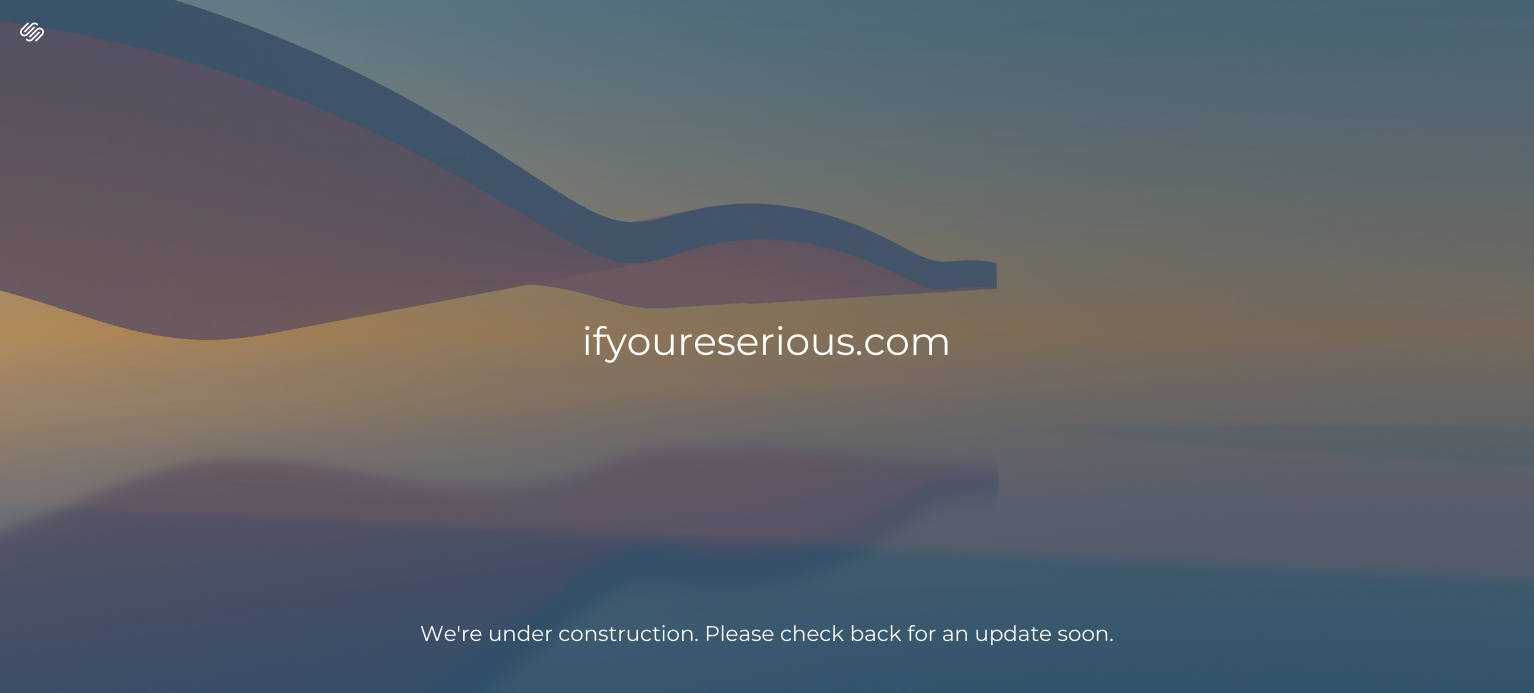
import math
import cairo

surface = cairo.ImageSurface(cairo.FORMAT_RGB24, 1534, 693)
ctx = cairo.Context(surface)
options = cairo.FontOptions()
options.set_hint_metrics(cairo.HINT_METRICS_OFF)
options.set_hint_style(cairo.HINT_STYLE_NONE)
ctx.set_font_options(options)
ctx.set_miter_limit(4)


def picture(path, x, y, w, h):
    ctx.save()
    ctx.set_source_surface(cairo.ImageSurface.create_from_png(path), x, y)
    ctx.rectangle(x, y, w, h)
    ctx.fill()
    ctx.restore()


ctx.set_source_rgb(1, 1, 1)
ctx.paint()
picture("img1.png", 0, 0, 1534, 693)
picture("img2.png", 20, 22, 24, 20)
ctx.select_font_face("Montserrat Thin")
ctx.set_font_size(39)
ctx.set_source_rgb(1, 1, 1)
ctx.move_to(582, 355)
ctx.show_text("ifyoureserious.com")
ctx.set_font_size(21.35)
ctx.move_to(420, 641)
ctx.show_text("We're under construction. Please check back for an update soon.")
surface.write_to_png("page.png")
